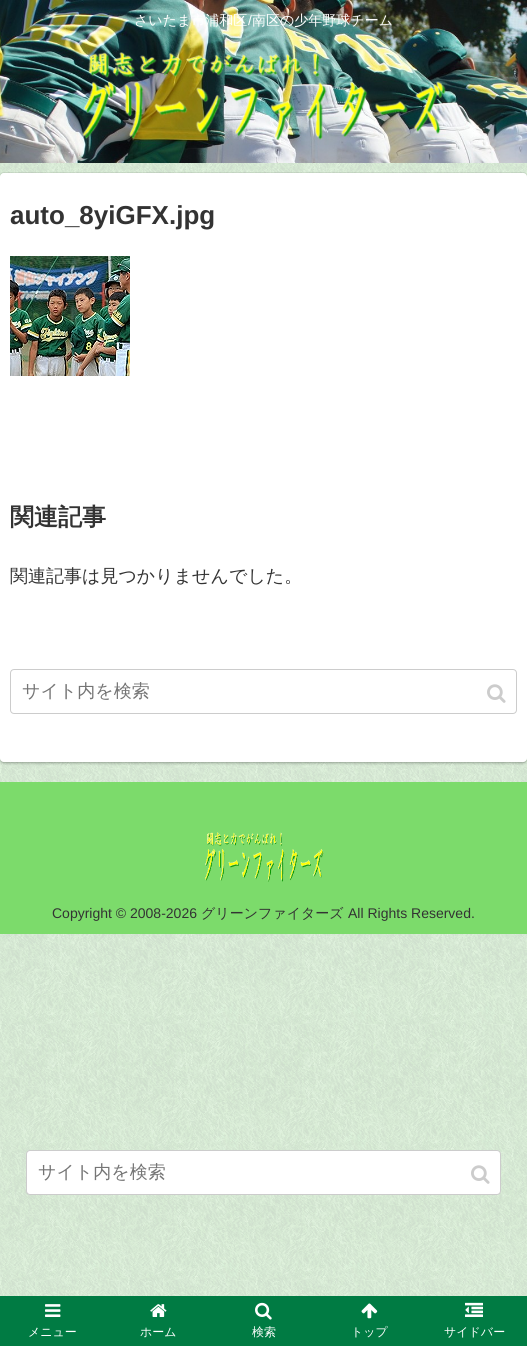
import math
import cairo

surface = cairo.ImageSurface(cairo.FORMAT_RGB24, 527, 1346)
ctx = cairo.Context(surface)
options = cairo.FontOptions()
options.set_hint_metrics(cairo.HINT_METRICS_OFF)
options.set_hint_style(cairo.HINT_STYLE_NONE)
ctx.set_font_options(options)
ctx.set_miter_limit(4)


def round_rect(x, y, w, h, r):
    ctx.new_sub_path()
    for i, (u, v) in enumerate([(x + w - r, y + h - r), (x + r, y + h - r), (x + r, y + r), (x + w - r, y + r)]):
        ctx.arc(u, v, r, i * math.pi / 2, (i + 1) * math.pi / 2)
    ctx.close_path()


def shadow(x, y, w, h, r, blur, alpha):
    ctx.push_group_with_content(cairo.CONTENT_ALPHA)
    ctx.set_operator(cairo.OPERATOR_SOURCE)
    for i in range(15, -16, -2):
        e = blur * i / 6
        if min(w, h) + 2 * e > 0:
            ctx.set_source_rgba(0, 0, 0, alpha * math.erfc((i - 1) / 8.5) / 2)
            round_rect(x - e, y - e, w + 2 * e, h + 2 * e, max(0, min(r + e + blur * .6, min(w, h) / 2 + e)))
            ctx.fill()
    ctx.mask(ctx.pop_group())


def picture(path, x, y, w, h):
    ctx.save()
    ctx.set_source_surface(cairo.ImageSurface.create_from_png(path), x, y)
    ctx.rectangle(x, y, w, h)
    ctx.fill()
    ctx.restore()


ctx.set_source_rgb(1, 1, 1)
ctx.paint()
picture("img1.png", 0, 163, 527, 1133)
picture("img2.png", 0, 0, 527, 163)
ctx.select_font_face("WenQuanYi Zen Hei Medium")
ctx.set_font_size(14)
ctx.set_source_rgb(1, 1, 1)
ctx.move_to(134, 25)
ctx.show_text("さいたま市浦和区")
ctx.select_font_face("Liberation Sans")
ctx.move_to(248, 25)
ctx.show_text("/")
ctx.select_font_face("WenQuanYi Zen Hei Medium")
ctx.move_to(252, 25)
ctx.show_text("南区の少年野球チーム")
picture("img3.png", 82, 52, 364, 88)
round_rect(-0.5, 172.5, 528, 590, 4.5)
ctx.set_source_rgba(0, 0, 0, 0.08)
ctx.set_line_width(1)
ctx.stroke()
ctx.set_source_rgb(0, 0, 0)
shadow(0, 175, 527, 589, 4, 1, 0.16)
ctx.set_source_rgb(1, 1, 1)
round_rect(0, 173, 527, 589, 4)
ctx.fill()
ctx.select_font_face("Liberation Sans", cairo.FONT_SLANT_NORMAL, cairo.FONT_WEIGHT_BOLD)
ctx.set_font_size(26)
ctx.set_source_rgb(0.2, 0.2, 0.2)
ctx.move_to(10, 224)
ctx.show_text("auto_8yiGFX.jpg")
picture("img4.png", 10, 256, 120, 120)
ctx.select_font_face("WenQuanYi Zen Hei", cairo.FONT_SLANT_NORMAL, cairo.FONT_WEIGHT_BOLD)
ctx.set_font_size(24)
ctx.move_to(10, 525)
ctx.show_text("関連記事")
ctx.select_font_face("WenQuanYi Zen Hei Medium")
ctx.set_font_size(18)
ctx.move_to(10, 582)
ctx.show_text("関連記事は見つかりませんでした。")
round_rect(10.5, 669.5, 506, 44, 3.5)
ctx.set_source_rgb(0.8, 0.8, 0.8)
ctx.stroke()
ctx.set_source_rgb(0.459, 0.459, 0.459)
ctx.move_to(22, 697)
ctx.show_text("サイト内を検索")
picture("img5.png", 487, 684, 19, 19)
ctx.set_source_rgb(0.486, 0.859, 0.42)
ctx.rectangle(0, 782, 527, 152)
ctx.fill()
picture("img6.png", 205, 832, 119, 50)
ctx.select_font_face("Liberation Sans")
ctx.set_font_size(14)
ctx.set_source_rgb(0.2, 0.2, 0.2)
ctx.move_to(52, 918)
ctx.show_text("Copyright © 2008-2026")
ctx.select_font_face("WenQuanYi Zen Hei Medium")
ctx.move_to(201, 918)
ctx.show_text("グリーンファイターズ")
ctx.select_font_face("Liberation Sans")
ctx.move_to(348, 918)
ctx.show_text("All Rights Reserved.")
ctx.set_source_rgb(0, 0.482, 0.263)
ctx.rectangle(0, 1296, 527, 50)
ctx.fill()
ctx.set_source_rgb(1, 1, 1)
round_rect(26.5, 1150.5, 474, 44, 3.5)
ctx.fill_preserve()
ctx.set_source_rgb(0.8, 0.8, 0.8)
ctx.stroke()
ctx.select_font_face("WenQuanYi Zen Hei Medium")
ctx.set_font_size(18)
ctx.set_source_rgb(0.459, 0.459, 0.459)
ctx.move_to(38, 1178)
ctx.show_text("サイト内を検索")
picture("img5.png", 471, 1165, 19, 19)
picture("img7.png", 255, 1302, 17, 18)
ctx.set_font_size(12)
ctx.set_source_rgb(1, 1, 1)
ctx.move_to(252, 1336)
ctx.show_text("検索")
picture("img8.png", 361, 1303, 17, 16)
ctx.move_to(351, 1336)
ctx.show_text("トップ")
picture("img9.png", 45, 1304, 16, 13)
ctx.move_to(28, 1336)
ctx.show_text("メニュー")
picture("img10.png", 150, 1304, 17, 13)
ctx.move_to(140, 1336)
ctx.show_text("ホーム")
picture("img11.png", 465, 1302, 18, 15)
ctx.move_to(444, 1336)
ctx.show_text("サイドバー")
surface.write_to_png("page.png")
